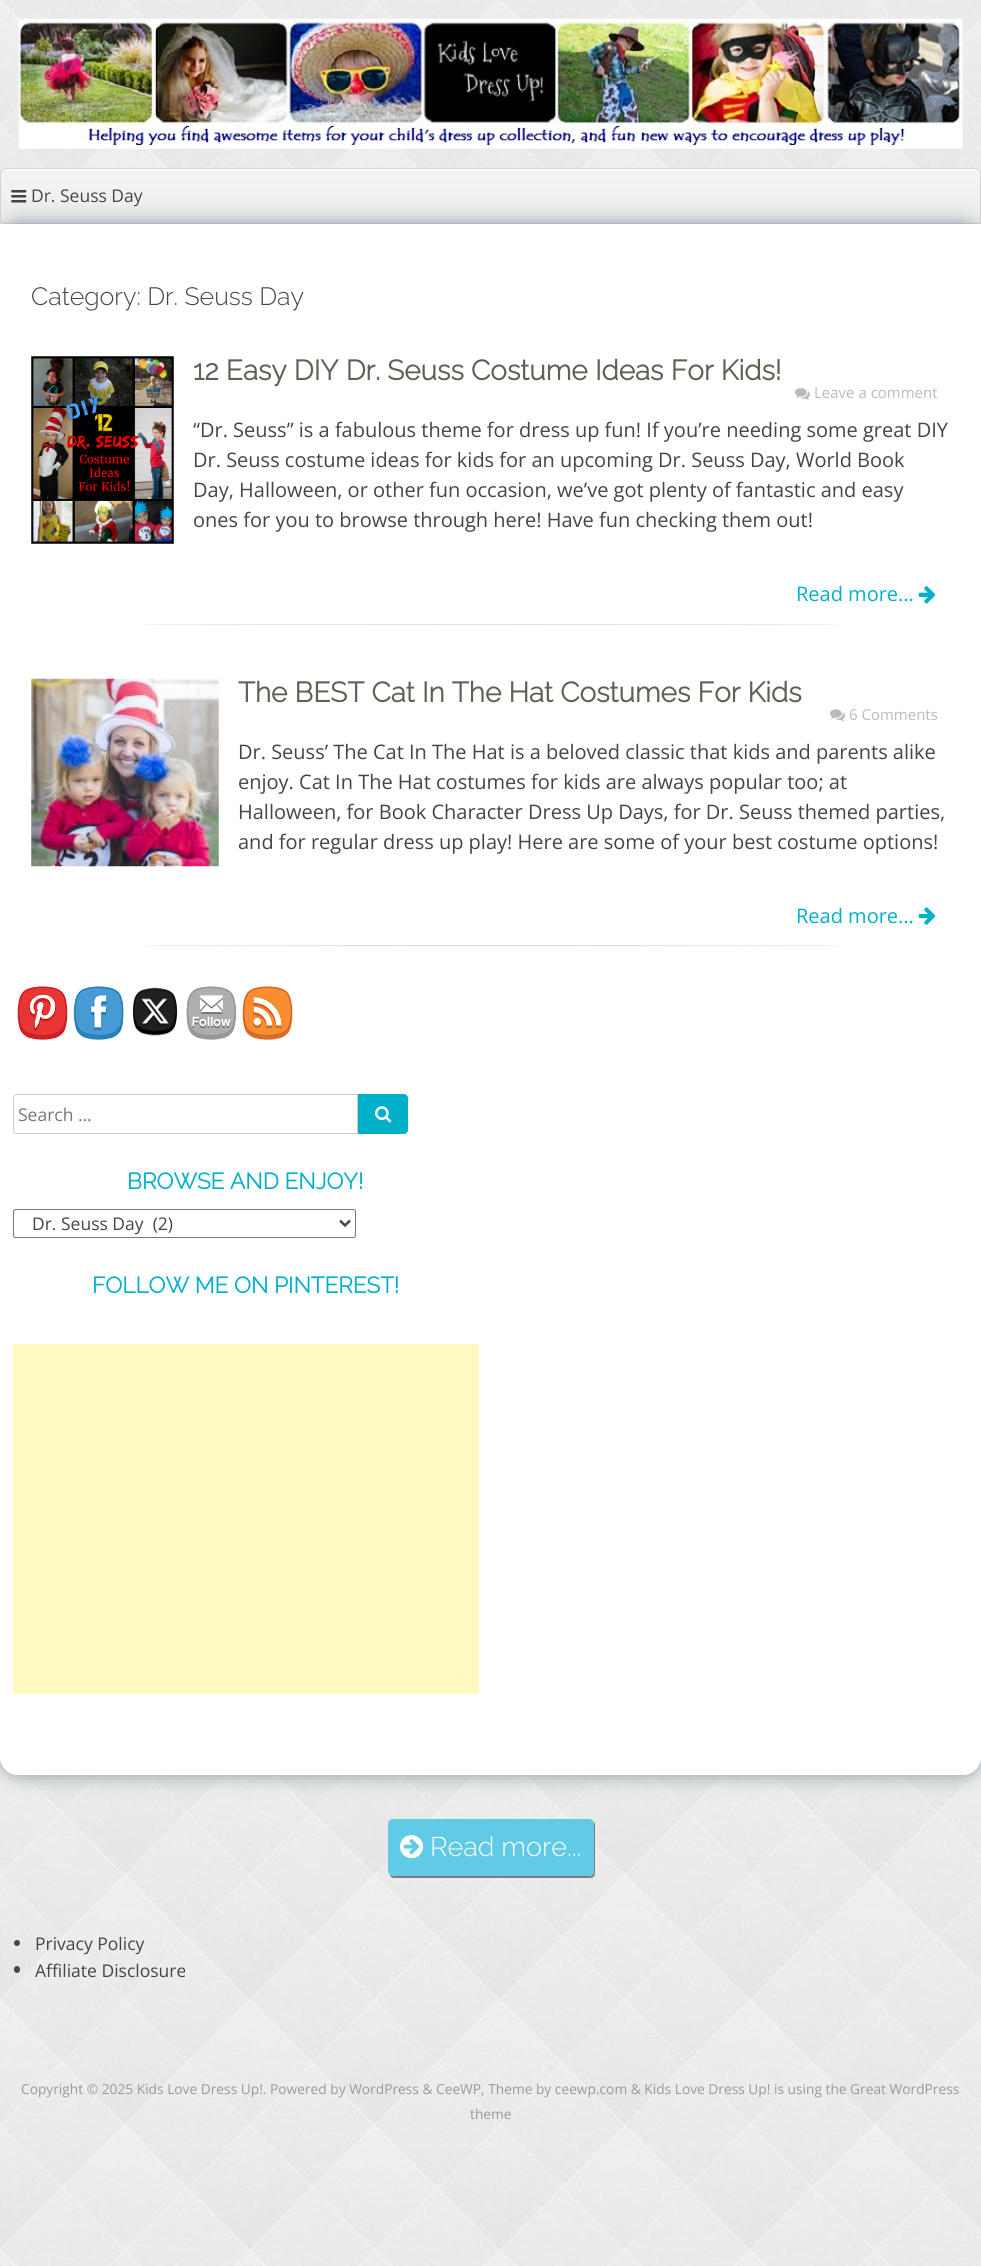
import math
import cairo

surface = cairo.ImageSurface(cairo.FORMAT_RGB24, 981, 2266)
ctx = cairo.Context(surface)
options = cairo.FontOptions()
options.set_hint_metrics(cairo.HINT_METRICS_OFF)
options.set_hint_style(cairo.HINT_STYLE_NONE)
ctx.set_font_options(options)
ctx.set_miter_limit(4)


def round_rect(x, y, w, h, r):
    ctx.new_sub_path()
    for i, (u, v) in enumerate([(x + w - r, y + h - r), (x + r, y + h - r), (x + r, y + r), (x + w - r, y + r)]):
        ctx.arc(u, v, r, i * math.pi / 2, (i + 1) * math.pi / 2)
    ctx.close_path()


def shadow(x, y, w, h, r, blur, alpha):
    ctx.push_group_with_content(cairo.CONTENT_ALPHA)
    ctx.set_operator(cairo.OPERATOR_SOURCE)
    for i in range(15, -16, -2):
        e = blur * i / 6
        if min(w, h) + 2 * e > 0:
            ctx.set_source_rgba(0, 0, 0, alpha * math.erfc((i - 1) / 8.5) / 2)
            round_rect(x - e, y - e, w + 2 * e, h + 2 * e, max(0, min(r + e + blur * .6, min(w, h) / 2 + e)))
            ctx.fill()
    ctx.mask(ctx.pop_group())


def picture(path, x, y, w, h):
    ctx.save()
    ctx.set_source_surface(cairo.ImageSurface.create_from_png(path), x, y)
    ctx.rectangle(x, y, w, h)
    ctx.fill()
    ctx.restore()


ctx.set_source_rgb(1, 1, 1)
ctx.paint()
picture("img1.png", 0, 0, 981, 2266)
picture("img2.png", 18, 18, 945, 131)
ctx.save()
ctx.new_path()
ctx.move_to(6, 168)
ctx.line_to(975, 168)
ctx.curve_to(978.5, 168, 981, 170.5, 981, 174)
ctx.line_to(981, 221.5)
ctx.curve_to(981, 223, 980, 224, 978.5, 224)
ctx.line_to(2.5, 224)
ctx.curve_to(1, 224, 0, 223, 0, 221.5)
ctx.line_to(0, 174)
ctx.curve_to(0, 170.5, 2.5, 168, 6, 168)
ctx.close_path()
ctx.clip()
gradient = cairo.LinearGradient(491, 169, 491, 223)
gradient.add_color_stop_rgba(0, 0.957, 0.957, 0.949, 1)
gradient.add_color_stop_rgba(1, 0.929, 0.929, 0.922, 1)
ctx.set_source(gradient)
ctx.rectangle(0, 169, 981, 54)
ctx.fill()
ctx.restore()
ctx.set_source_rgb(0.992, 0.992, 0.988)
ctx.new_path()
ctx.move_to(6, 170)
ctx.line_to(975, 170)
ctx.curve_to(978, 170, 980, 172, 980, 175)
ctx.curve_to(980, 172, 978, 169, 975, 169)
ctx.line_to(6, 169)
ctx.curve_to(3, 169, 1, 172, 1, 175)
ctx.curve_to(1, 172, 3, 170, 6, 170)
ctx.close_path()
ctx.fill()
ctx.new_path()
ctx.move_to(6, 168.5)
ctx.line_to(975, 168.5)
ctx.curve_to(978, 168.5, 980.5, 171, 980.5, 174)
ctx.line_to(980.5, 221.5)
ctx.curve_to(980.5, 222.5, 979.5, 223.5, 978.5, 223.5)
ctx.line_to(2.5, 223.5)
ctx.curve_to(1.5, 223.5, 0.5, 222.5, 0.5, 221.5)
ctx.line_to(0.5, 174)
ctx.curve_to(0.5, 171, 3, 168.5, 6, 168.5)
ctx.close_path()
ctx.set_source_rgb(0.831, 0.831, 0.831)
ctx.set_line_width(1)
ctx.stroke()
ctx.set_source_rgb(0.522, 0.588, 0.624)
shadow(0, 224, 981, 1551, 19, 10, 1)
picture("img3.png", 11, 190, 16, 13)
ctx.select_font_face("Open Sans")
ctx.set_font_size(17.5)
ctx.set_source_rgb(0.267, 0.271, 0.271)
ctx.move_to(31, 202)
ctx.show_text("Dr. Seuss Day")
ctx.set_source_rgb(1, 1, 1)
ctx.new_path()
ctx.move_to(0, 224)
ctx.line_to(981, 224)
ctx.line_to(981, 1756)
ctx.curve_to(981, 1766.5, 972.5, 1775, 962, 1775)
ctx.line_to(19, 1775)
ctx.curve_to(8.5, 1775, 0, 1766.5, 0, 1756)
ctx.close_path()
ctx.fill()
ctx.set_fill_rule(cairo.FILL_RULE_EVEN_ODD)
ctx.new_path()
ctx.move_to(0, 224)
ctx.line_to(981, 224)
ctx.line_to(981, 1756)
ctx.curve_to(981, 1767, 973, 1775, 962, 1775)
ctx.line_to(19, 1775)
ctx.curve_to(8, 1775, 0, 1767, 0, 1756)
ctx.close_path()
ctx.move_to(12, 224)
ctx.line_to(969, 224)
ctx.line_to(969, 1756)
ctx.curve_to(969, 1760, 966, 1762, 962, 1762)
ctx.line_to(19, 1762)
ctx.curve_to(15, 1762, 12, 1760, 12, 1756)
ctx.close_path()
ctx.fill()
ctx.select_font_face("Raleway Thin")
ctx.set_font_size(25)
ctx.set_source_rgb(0.267, 0.271, 0.271)
ctx.move_to(31, 305)
ctx.show_text("Category: Dr. Seuss Day")
picture("img4.png", 141, 624, 702, 1)
picture("img5.png", 31, 356, 143, 188)
ctx.select_font_face("Raleway", cairo.FONT_SLANT_NORMAL, cairo.FONT_WEIGHT_BOLD)
ctx.set_font_size(28)
ctx.set_source_rgb(0.392, 0.373, 0.329)
ctx.move_to(193, 380)
ctx.show_text("12 Easy DIY Dr. Seuss Costume Ideas For Kids!")
picture("img6.png", 795, 388, 15, 12)
ctx.select_font_face("Open Sans")
ctx.set_font_size(15)
ctx.set_source_rgb(0.729, 0.729, 0.729)
ctx.move_to(814, 398)
ctx.show_text("Leave a comment")
ctx.set_font_size(20)
ctx.set_source_rgb(0.267, 0.271, 0.271)
ctx.move_to(193, 437)
ctx.show_text("“Dr. Seuss” is a fabulous theme for dress up fun! If you’re needing some great DIY")
ctx.move_to(193, 467)
ctx.show_text("Dr. Seuss costume ideas for kids for an upcoming Dr. Seuss Day, World Book")
ctx.move_to(193, 497)
ctx.show_text("Day, Halloween, or other fun occasion, we’ve got plenty of fantastic and easy")
ctx.move_to(193, 527)
ctx.show_text("ones for you to browse through here! Have fun checking them out!")
ctx.set_source_rgb(0, 0.69, 0.784)
ctx.move_to(796, 601)
ctx.show_text("Read more...")
picture("img7.png", 918, 586, 18, 18)
picture("img8.png", 141, 945, 702, 2)
picture("img9.png", 31, 678, 188, 189)
ctx.select_font_face("Raleway", cairo.FONT_SLANT_NORMAL, cairo.FONT_WEIGHT_BOLD)
ctx.set_font_size(28)
ctx.set_source_rgb(0.392, 0.373, 0.329)
ctx.move_to(238, 702)
ctx.show_text("The BEST Cat In The Hat Costumes For Kids")
picture("img10.png", 830, 709, 15, 12)
ctx.select_font_face("Open Sans")
ctx.set_font_size(15)
ctx.set_source_rgb(0.729, 0.729, 0.729)
ctx.move_to(849, 720)
ctx.show_text("6 Comments")
ctx.set_font_size(20)
ctx.set_source_rgb(0.267, 0.271, 0.271)
ctx.move_to(238, 759)
ctx.show_text("Dr. Seuss’ The Cat In The Hat is a beloved classic that kids and parents alike")
ctx.move_to(238, 789)
ctx.show_text("enjoy. Cat In The Hat costumes for kids are always popular too; at")
ctx.move_to(238, 819)
ctx.show_text("Halloween, for Book Character Dress Up Days, for Dr. Seuss themed parties,")
ctx.move_to(238, 849)
ctx.show_text("and for regular dress up play! Here are some of your best costume options!")
ctx.set_source_rgb(0, 0.69, 0.784)
ctx.move_to(796, 923)
ctx.show_text("Read more...")
picture("img11.png", 918, 907, 18, 18)
picture("img12.png", 17, 986, 51, 54)
picture("img13.png", 73, 986, 51, 54)
picture("img14.png", 132, 987, 46, 49)
picture("img15.png", 186, 986, 51, 54)
picture("img16.png", 242, 986, 51, 54)
ctx.new_path()
ctx.move_to(17, 1094.5)
ctx.line_to(357.5, 1094.5)
ctx.line_to(357.5, 1133.5)
ctx.line_to(17, 1133.5)
ctx.curve_to(15, 1133.5, 13.5, 1132, 13.5, 1130)
ctx.line_to(13.5, 1098)
ctx.curve_to(13.5, 1096, 15, 1094.5, 17, 1094.5)
ctx.close_path()
ctx.set_source_rgb(0.8, 0.8, 0.8)
ctx.stroke()
ctx.set_font_size(17.5)
ctx.set_source_rgb(0.459, 0.459, 0.459)
ctx.move_to(18, 1121)
ctx.show_text("Search …")
ctx.set_source_rgb(0, 0.69, 0.784)
ctx.new_path()
ctx.move_to(358, 1094)
ctx.line_to(404, 1094)
ctx.curve_to(406, 1094, 408, 1096, 408, 1098)
ctx.line_to(408, 1130)
ctx.curve_to(408, 1132, 406, 1134, 404, 1134)
ctx.line_to(358, 1134)
ctx.close_path()
ctx.fill()
picture("img17.png", 375, 1106, 17, 17)
ctx.select_font_face("Raleway", cairo.FONT_SLANT_NORMAL, cairo.FONT_WEIGHT_BOLD)
ctx.set_font_size(22.5)
ctx.move_to(127, 1189)
ctx.show_text("BROWSE AND ENJOY!")
round_rect(13.5, 1209.5, 342, 28, 2)
ctx.set_source_rgb(0.463, 0.463, 0.463)
ctx.stroke()
ctx.new_path()
ctx.move_to(340, 1220.5)
ctx.line_to(345, 1225.5)
ctx.line_to(350, 1220.5)
ctx.set_source_rgb(0.267, 0.271, 0.271)
ctx.set_line_width(2.5)
ctx.stroke()
ctx.select_font_face("Open Sans")
ctx.set_font_size(17.5)
ctx.move_to(32, 1230)
ctx.show_text("Dr. Seuss Day  (2)")
ctx.select_font_face("Raleway", cairo.FONT_SLANT_NORMAL, cairo.FONT_WEIGHT_BOLD)
ctx.set_font_size(22.5)
ctx.set_source_rgb(0, 0.69, 0.784)
ctx.move_to(92, 1293)
ctx.show_text("FOLLOW ME ON PINTEREST!")
ctx.set_source_rgb(1, 0.976, 0.753)
ctx.rectangle(13, 1344, 466, 350)
ctx.fill()
ctx.set_source_rgb(0.49, 0.49, 0.49)
ctx.set_fill_rule(cairo.FILL_RULE_WINDING)
ctx.new_path()
ctx.move_to(390, 1875)
ctx.curve_to(390, 1877, 392, 1878, 394, 1878)
ctx.line_to(590, 1878)
ctx.curve_to(593, 1878, 595, 1876, 595, 1873)
ctx.line_to(595, 1825)
ctx.curve_to(595, 1823, 594, 1822, 593, 1821)
ctx.line_to(594, 1824)
ctx.line_to(594, 1871)
ctx.curve_to(594, 1874, 592, 1876, 589, 1876)
ctx.line_to(392, 1876)
ctx.close_path()
ctx.fill()
ctx.set_source_rgb(0.38, 0.796, 0.902)
round_rect(388, 1819, 206, 57, 5)
ctx.fill()
picture("img18.png", 400, 1835, 24, 24)
ctx.select_font_face("Raleway Thin")
ctx.set_font_size(27)
ctx.set_source_rgb(1, 1, 1)
ctx.move_to(430, 1856)
ctx.show_text("Read more...")
ctx.set_source_rgb(0.267, 0.271, 0.271)
ctx.new_path()
ctx.arc(17, 1943, 3, 0, 2 * math.pi)
ctx.fill()
ctx.select_font_face("Open Sans")
ctx.set_font_size(17.5)
ctx.move_to(35, 1950)
ctx.show_text("Privacy Policy")
round_rect(14, 1966, 6, 7, 3)
ctx.fill()
ctx.move_to(35, 1977)
ctx.show_text("Affiliate Disclosure")
ctx.set_font_size(13.75)
ctx.set_source_rgb(0.6, 0.6, 0.6)
ctx.move_to(21, 2094)
ctx.show_text("Copyright © 2025 Kids Love Dress Up!. Powered by WordPress & CeeWP, Theme by ceewp.com & Kids Love Dress Up! is using the Great WordPress")
ctx.move_to(470, 2119)
ctx.show_text("theme")
surface.write_to_png("page.png")
